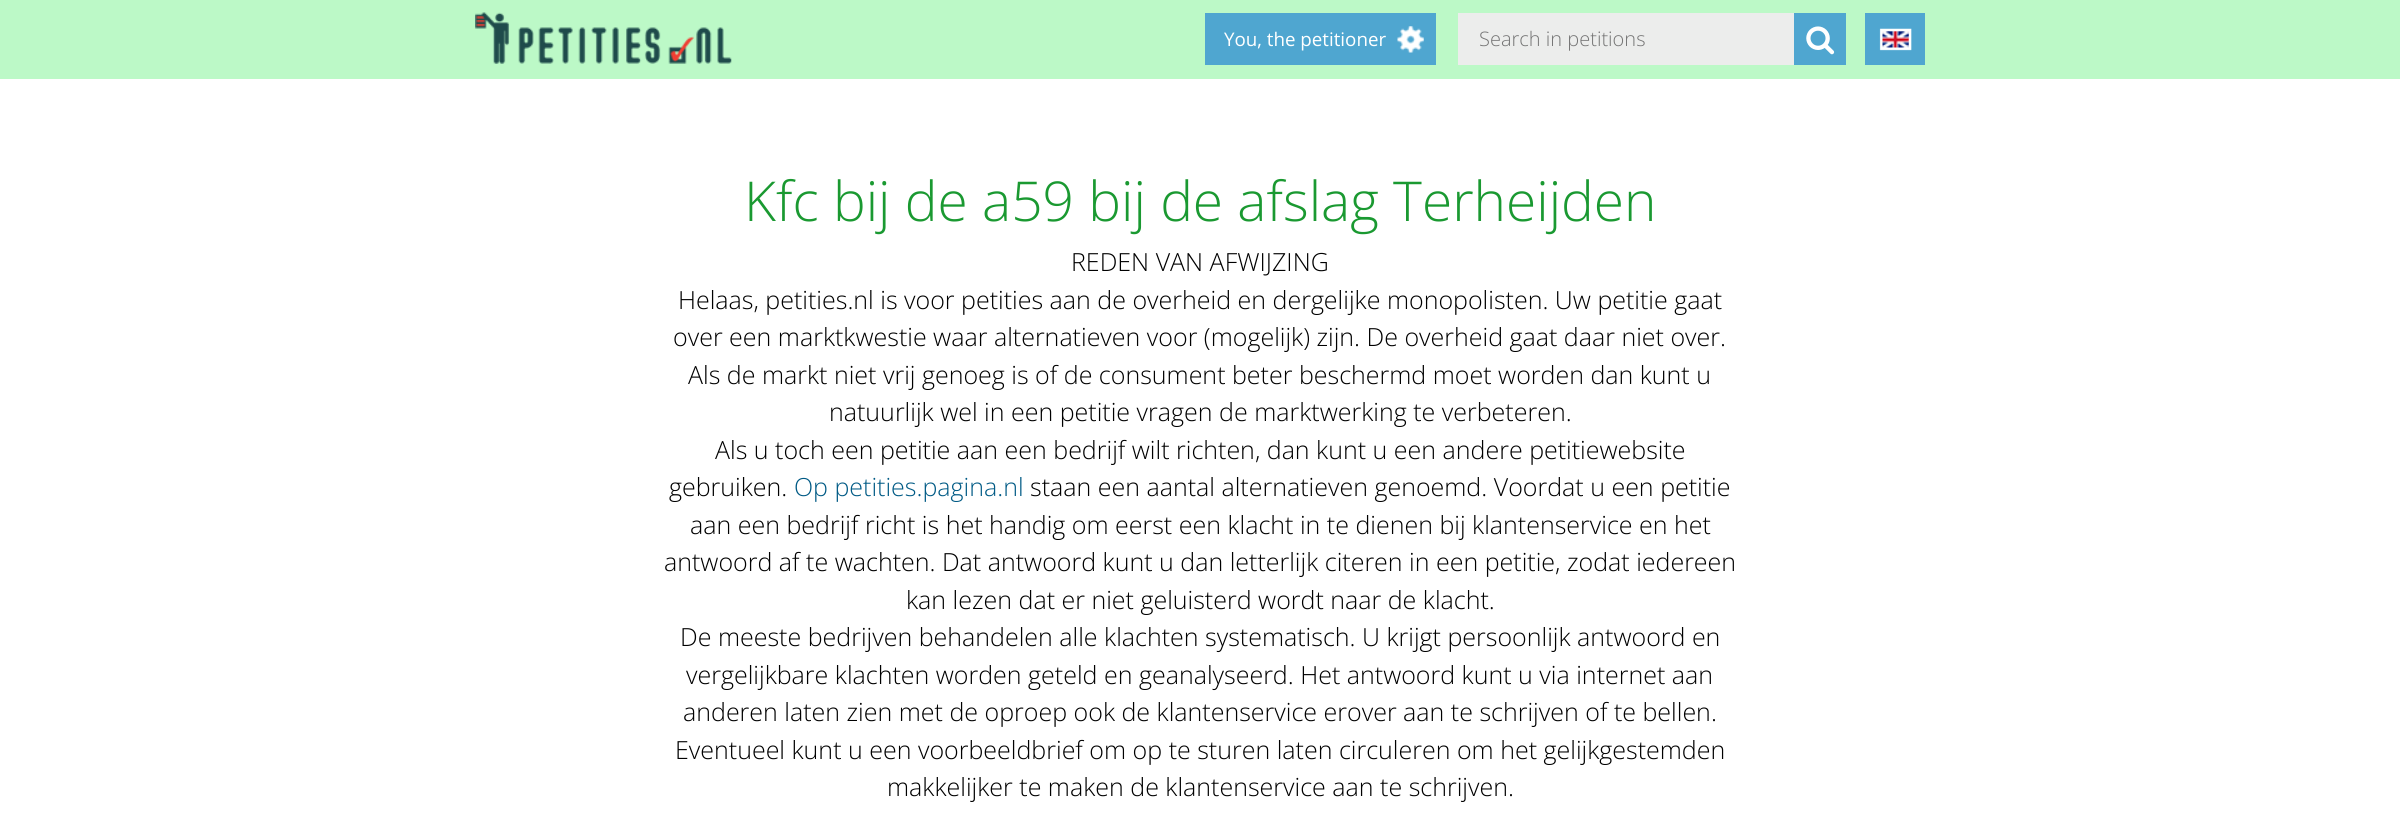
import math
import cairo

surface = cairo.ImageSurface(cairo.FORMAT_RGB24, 2400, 816)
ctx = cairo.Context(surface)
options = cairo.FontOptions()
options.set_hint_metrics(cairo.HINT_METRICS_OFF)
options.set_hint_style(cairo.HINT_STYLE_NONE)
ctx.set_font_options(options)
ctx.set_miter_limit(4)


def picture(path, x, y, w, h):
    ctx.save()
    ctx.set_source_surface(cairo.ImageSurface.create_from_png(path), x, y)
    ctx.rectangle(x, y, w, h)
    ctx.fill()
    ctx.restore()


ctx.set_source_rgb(1, 1, 1)
ctx.paint()
ctx.set_source_rgb(0.737, 0.976, 0.78)
ctx.rectangle(0, 0, 2400, 79)
ctx.fill()
picture("img1.png", 475, 12, 257, 52)
ctx.set_source_rgb(0.31, 0.651, 0.816)
ctx.rectangle(1205, 13, 231, 52)
ctx.fill()
picture("img2.png", 1397, 26, 27, 27)
ctx.select_font_face("Open Sans")
ctx.set_font_size(18.75)
ctx.set_source_rgb(1, 1, 1)
ctx.move_to(1224, 46)
ctx.show_text("You, the petitioner")
ctx.set_source_rgb(0.925, 0.929, 0.925)
ctx.rectangle(1458, 13, 336, 52)
ctx.fill()
ctx.select_font_face("Open Sans Light")
ctx.set_font_size(20)
ctx.set_source_rgb(0.459, 0.459, 0.459)
ctx.move_to(1479, 46)
ctx.show_text("Search in petitions")
ctx.set_source_rgb(0.31, 0.651, 0.816)
ctx.rectangle(1794, 13, 52, 52)
ctx.fill()
picture("img3.png", 1806, 26, 29, 29)
ctx.rectangle(1865, 13, 60, 52)
ctx.fill()
picture("img4.png", 1879, 28, 33, 23)
ctx.set_font_size(55)
ctx.set_source_rgb(0.102, 0.6, 0.192)
ctx.move_to(744, 221)
ctx.show_text("Kfc bij de a59 bij de afslag Terheijden")
ctx.set_font_size(25)
ctx.set_source_rgb(0, 0, 0)
ctx.move_to(1071, 271)
ctx.show_text("REDEN VAN AFWIJZING")
ctx.move_to(678, 309)
ctx.show_text("Helaas, petities.nl is voor petities aan de overheid en dergelijke monopolisten. Uw petitie gaat")
ctx.move_to(673, 346)
ctx.show_text("over een marktkwestie waar alternatieven voor (mogelijk) zijn. De overheid gaat daar niet over.")
ctx.move_to(688, 384)
ctx.show_text("Als de markt niet vrij genoeg is of de consument beter beschermd moet worden dan kunt u")
ctx.move_to(829, 421)
ctx.show_text("natuurlijk wel in een petitie vragen de marktwerking te verbeteren.")
ctx.move_to(715, 459)
ctx.show_text("Als u toch een petitie aan een bedrijf wilt richten, dan kunt u een andere petitiewebsite")
ctx.move_to(669, 496)
ctx.show_text("gebruiken.")
ctx.set_source_rgb(0, 0.353, 0.522)
ctx.move_to(794, 496)
ctx.show_text("Op petities.pagina.nl")
ctx.set_source_rgb(0, 0, 0)
ctx.move_to(1030, 496)
ctx.show_text("staan een aantal alternatieven genoemd. Voordat u een petitie")
ctx.move_to(690, 534)
ctx.show_text("aan een bedrijf richt is het handig om eerst een klacht in te dienen bij klantenservice en het")
ctx.move_to(664, 571)
ctx.show_text("antwoord af te wachten. Dat antwoord kunt u dan letterlijk citeren in een petitie, zodat iedereen")
ctx.move_to(906, 609)
ctx.show_text("kan lezen dat er niet geluisterd wordt naar de klacht.")
ctx.move_to(680, 646)
ctx.show_text("De meeste bedrijven behandelen alle klachten systematisch. U krijgt persoonlijk antwoord en")
ctx.move_to(686, 684)
ctx.show_text("vergelijkbare klachten worden geteld en geanalyseerd. Het antwoord kunt u via internet aan")
ctx.move_to(683, 721)
ctx.show_text("anderen laten zien met de oproep ook de klantenservice erover aan te schrijven of te bellen.")
ctx.move_to(675, 759)
ctx.show_text("Eventueel kunt u een voorbeeldbrief om op te sturen laten circuleren om het gelijkgestemden")
ctx.move_to(887, 796)
ctx.show_text("makkelijker te maken de klantenservice aan te schrijven.")
surface.write_to_png("page.png")
